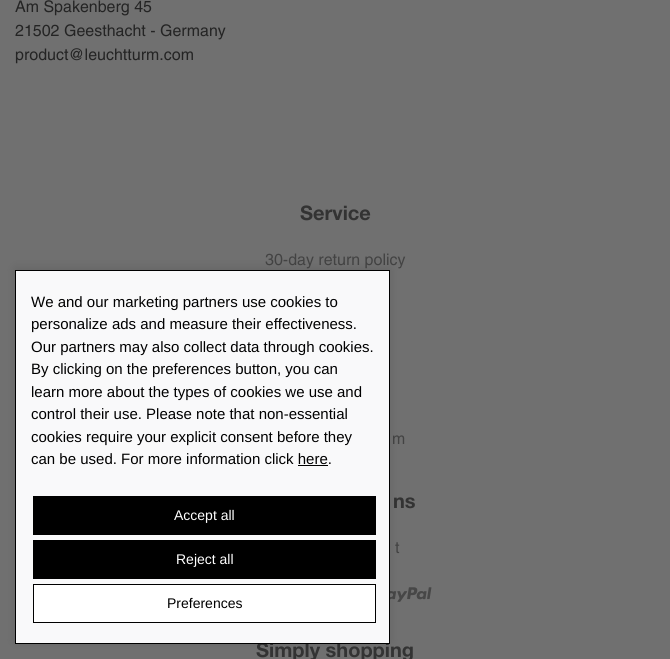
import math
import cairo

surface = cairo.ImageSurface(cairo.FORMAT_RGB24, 670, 659)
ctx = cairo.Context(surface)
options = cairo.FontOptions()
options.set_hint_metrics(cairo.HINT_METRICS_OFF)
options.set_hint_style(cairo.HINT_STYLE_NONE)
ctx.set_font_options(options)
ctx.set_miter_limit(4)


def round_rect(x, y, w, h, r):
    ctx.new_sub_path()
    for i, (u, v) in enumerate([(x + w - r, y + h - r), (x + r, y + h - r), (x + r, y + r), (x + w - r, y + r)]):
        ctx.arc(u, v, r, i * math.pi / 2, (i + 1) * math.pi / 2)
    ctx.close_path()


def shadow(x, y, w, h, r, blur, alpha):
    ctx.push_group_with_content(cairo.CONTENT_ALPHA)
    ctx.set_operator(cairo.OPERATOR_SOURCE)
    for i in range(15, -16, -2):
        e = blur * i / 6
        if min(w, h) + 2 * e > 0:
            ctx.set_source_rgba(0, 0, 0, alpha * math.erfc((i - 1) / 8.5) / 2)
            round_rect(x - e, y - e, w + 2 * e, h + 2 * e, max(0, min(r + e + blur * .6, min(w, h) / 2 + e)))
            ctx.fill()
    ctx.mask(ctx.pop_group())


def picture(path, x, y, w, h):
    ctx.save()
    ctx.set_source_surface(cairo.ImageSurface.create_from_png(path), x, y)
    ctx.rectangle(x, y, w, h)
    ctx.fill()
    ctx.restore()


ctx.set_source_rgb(0.439, 0.439, 0.439)
ctx.paint()
ctx.select_font_face("Helvetica")
ctx.set_font_size(16)
ctx.set_source_rgb(0.141, 0.141, 0.141)
ctx.move_to(15, 12)
ctx.show_text("Am Spakenberg 45")
ctx.move_to(15, 36)
ctx.show_text("21502 Geesthacht - Germany")
ctx.move_to(15, 60)
ctx.show_text("product@leuchtturm.com")
ctx.select_font_face("Helvetica Neue", cairo.FONT_SLANT_NORMAL, cairo.FONT_WEIGHT_BOLD)
ctx.set_font_size(20)
ctx.set_source_rgb(0.2, 0.2, 0.2)
ctx.move_to(300, 220)
ctx.show_text("Service")
ctx.select_font_face("Helvetica")
ctx.set_font_size(16)
ctx.set_source_rgb(0.263, 0.263, 0.263)
ctx.move_to(265, 265)
ctx.show_text("30-day return policy")
ctx.move_to(392, 444)
ctx.show_text("m")
ctx.select_font_face("Helvetica Neue", cairo.FONT_SLANT_NORMAL, cairo.FONT_WEIGHT_BOLD)
ctx.set_font_size(20)
ctx.set_source_rgb(0.2, 0.2, 0.2)
ctx.move_to(393, 508)
ctx.show_text("ns")
ctx.select_font_face("Helvetica")
ctx.set_font_size(16)
ctx.set_source_rgb(0.263, 0.263, 0.263)
ctx.move_to(395, 553)
ctx.show_text("t")
picture("img1.png", 390, 587, 42, 15)
ctx.select_font_face("Helvetica Neue", cairo.FONT_SLANT_NORMAL, cairo.FONT_WEIGHT_BOLD)
ctx.set_font_size(20)
ctx.set_source_rgb(0.2, 0.2, 0.2)
ctx.move_to(256, 657)
ctx.show_text("Simply shopping")
ctx.set_source_rgb(0, 0, 0)
shadow(15, 268, 375, 374, 0, 5, 0.1)
ctx.set_source_rgb(0.973, 0.976, 0.98)
ctx.rectangle(15.5, 270.5, 374, 373)
ctx.fill_preserve()
ctx.set_source_rgb(0, 0, 0)
ctx.set_line_width(1)
ctx.stroke()
ctx.select_font_face("Liberation Sans")
ctx.set_font_size(15)
ctx.move_to(31, 307)
ctx.show_text("We and our marketing partners use cookies to")
ctx.move_to(31, 329)
ctx.show_text("personalize ads and measure their effectiveness.")
ctx.move_to(31, 352)
ctx.show_text("Our partners may also collect data through cookies.")
ctx.move_to(31, 374)
ctx.show_text("By clicking on the preferences button, you can")
ctx.move_to(31, 397)
ctx.show_text("learn more about the types of cookies we use and")
ctx.move_to(31, 419)
ctx.show_text("control their use. Please note that non-essential")
ctx.move_to(31, 442)
ctx.show_text("cookies require your explicit consent before they")
ctx.move_to(31, 464)
ctx.show_text("can be used. For more information click here.")
ctx.rectangle(298, 465, 30, 1)
ctx.fill()
ctx.rectangle(33, 496, 343, 39)
ctx.fill()
ctx.set_font_size(14)
ctx.set_source_rgb(1, 1, 1)
ctx.move_to(174, 520)
ctx.show_text("Accept all")
ctx.set_source_rgb(0, 0, 0)
ctx.rectangle(33, 540, 343, 39)
ctx.fill()
ctx.set_source_rgb(1, 1, 1)
ctx.move_to(176, 564)
ctx.show_text("Reject all")
ctx.rectangle(33.5, 584.5, 342, 38)
ctx.fill_preserve()
ctx.set_source_rgb(0, 0, 0)
ctx.stroke()
ctx.move_to(167, 608)
ctx.show_text("Preferences")
surface.write_to_png("page.png")
